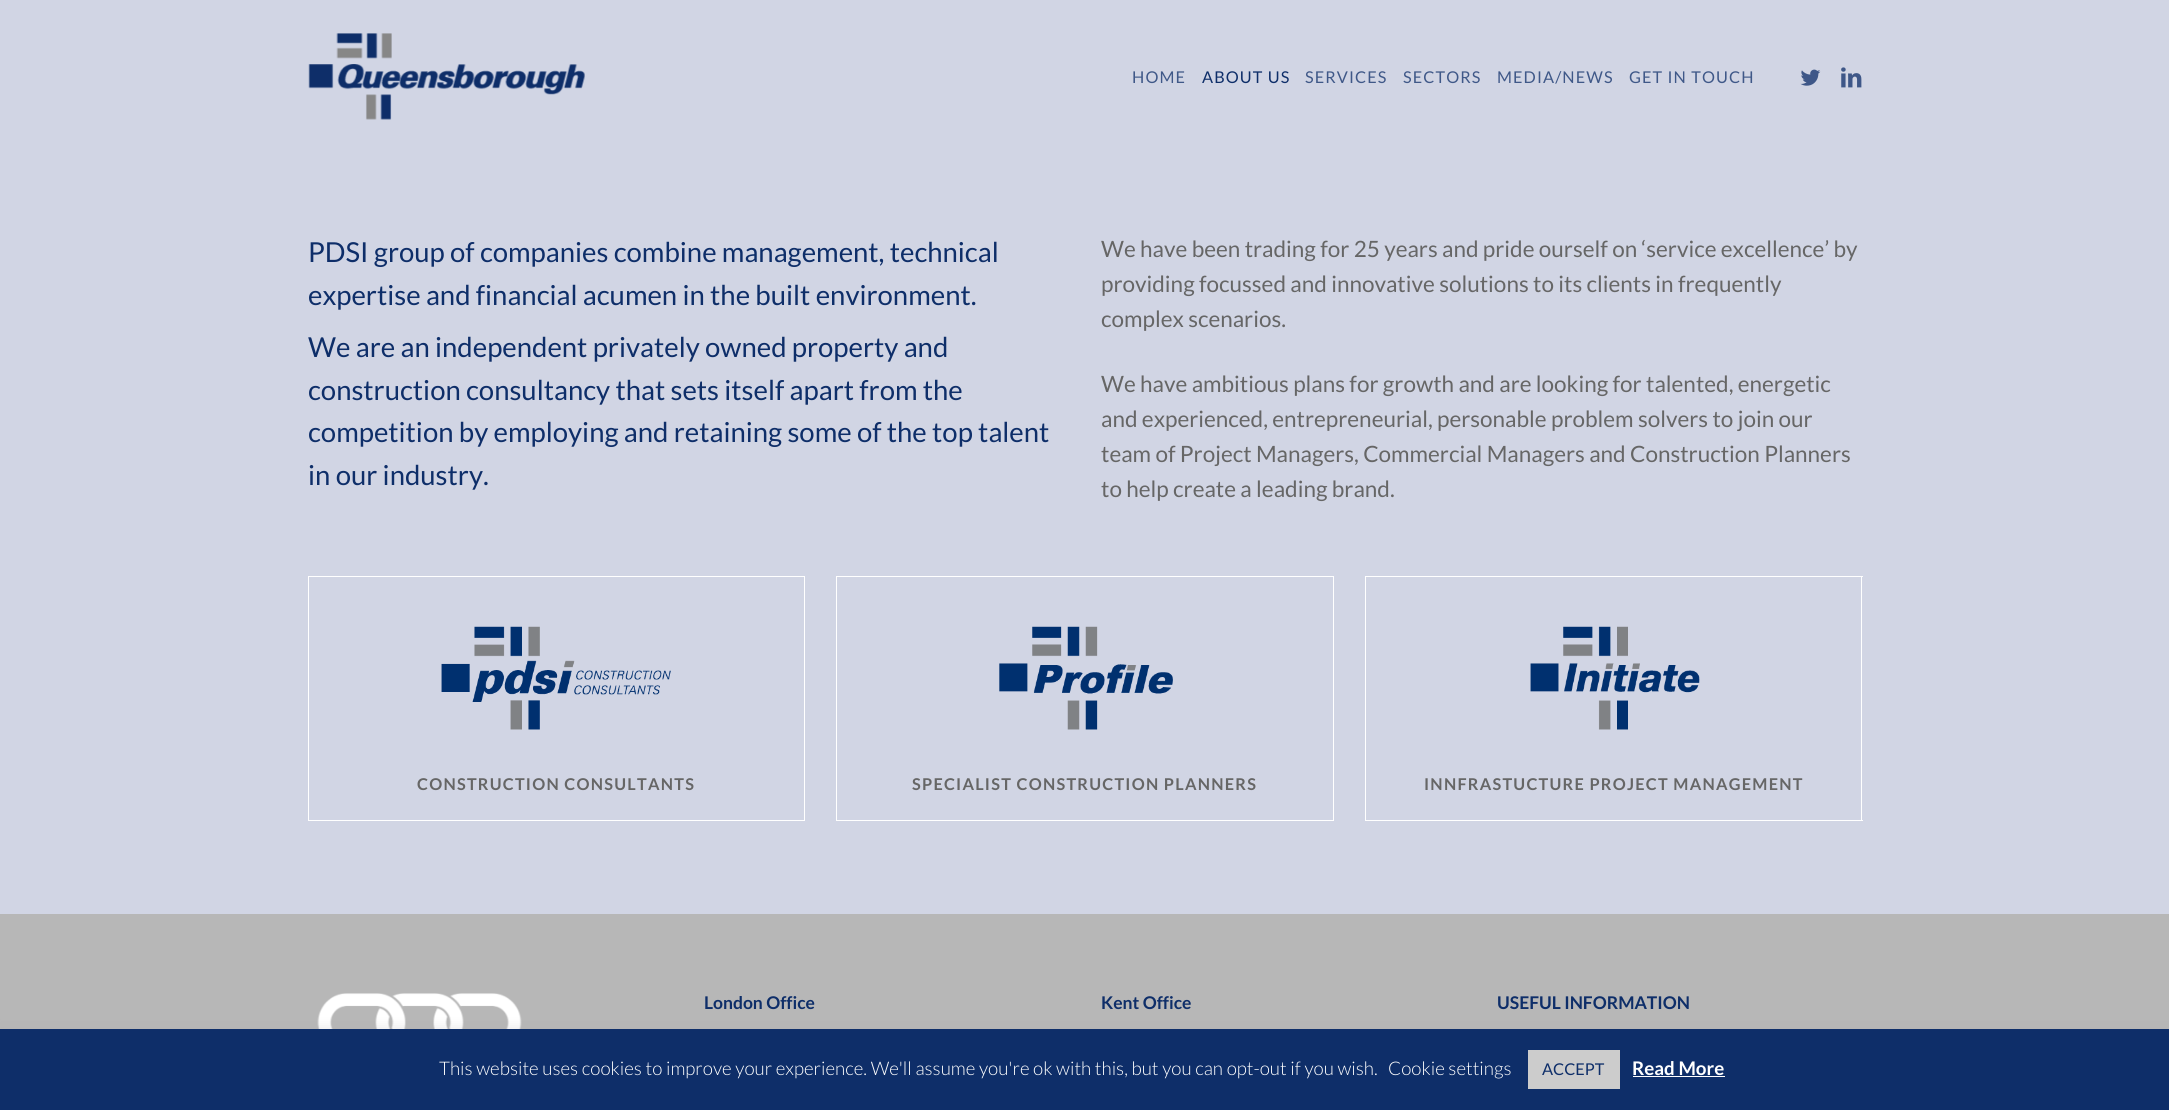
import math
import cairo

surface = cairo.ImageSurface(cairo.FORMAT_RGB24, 2169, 1110)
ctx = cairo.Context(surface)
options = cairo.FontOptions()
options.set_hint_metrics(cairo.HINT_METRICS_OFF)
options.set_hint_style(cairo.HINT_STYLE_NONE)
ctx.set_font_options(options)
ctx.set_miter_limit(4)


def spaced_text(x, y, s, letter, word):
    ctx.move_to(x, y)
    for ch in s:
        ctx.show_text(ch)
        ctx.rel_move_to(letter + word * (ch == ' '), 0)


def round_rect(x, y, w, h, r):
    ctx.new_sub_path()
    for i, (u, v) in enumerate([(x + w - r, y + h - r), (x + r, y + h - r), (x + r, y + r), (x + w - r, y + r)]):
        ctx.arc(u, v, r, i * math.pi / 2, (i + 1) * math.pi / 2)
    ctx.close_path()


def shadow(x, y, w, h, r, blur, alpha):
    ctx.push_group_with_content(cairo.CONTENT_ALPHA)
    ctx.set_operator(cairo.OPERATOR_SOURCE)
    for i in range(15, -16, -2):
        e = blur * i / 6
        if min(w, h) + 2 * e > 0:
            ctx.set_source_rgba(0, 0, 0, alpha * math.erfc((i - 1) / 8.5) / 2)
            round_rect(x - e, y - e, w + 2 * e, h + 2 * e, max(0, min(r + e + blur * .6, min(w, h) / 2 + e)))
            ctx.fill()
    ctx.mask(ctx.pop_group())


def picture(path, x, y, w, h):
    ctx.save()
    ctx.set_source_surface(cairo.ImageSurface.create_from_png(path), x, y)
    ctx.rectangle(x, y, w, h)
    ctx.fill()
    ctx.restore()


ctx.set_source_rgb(0.82, 0.835, 0.894)
ctx.paint()
picture("img1.png", 308, 33, 277, 87)
ctx.select_font_face("Lato")
ctx.set_font_size(16.25)
ctx.set_source_rgb(0.247, 0.345, 0.533)
spaced_text(1132, 83, "HOME", 1.1, 0)
ctx.set_source_rgb(0.055, 0.18, 0.412)
spaced_text(1202, 83, "ABOUT US", 1.1, 0)
ctx.set_source_rgb(0.247, 0.345, 0.533)
spaced_text(1305, 83, "SERVICES", 1.1, 0)
spaced_text(1403, 83, "SECTORS", 1.1, 0)
spaced_text(1497, 83, "MEDIA/NEWS", 1.1, 0)
spaced_text(1629, 83, "GET IN TOUCH", 1.1, 0)
picture("img2.png", 1800, 69, 21, 17)
picture("img3.png", 1841, 67, 21, 21)
ctx.set_font_size(27.5)
ctx.set_source_rgb(0.055, 0.18, 0.412)
ctx.move_to(308, 262)
ctx.show_text("PDSI group of companies combine management, technical")
ctx.move_to(308, 305)
ctx.show_text("expertise and financial acumen in the built environment.")
ctx.move_to(308, 357)
ctx.show_text("We are an independent privately owned property and")
ctx.move_to(308, 400)
ctx.show_text("construction consultancy that sets itself apart from the")
ctx.move_to(308, 442)
ctx.show_text("competition by employing and retaining some of the top talent")
ctx.move_to(308, 485)
ctx.show_text("in our industry.")
ctx.set_font_size(22.5)
ctx.set_source_rgb(0.4, 0.4, 0.4)
ctx.move_to(1101, 257)
ctx.show_text("We have been trading for 25 years and pride ourself on ‘service excellence’ by")
ctx.move_to(1101, 292)
ctx.show_text("providing focussed and innovative solutions to its clients in frequently")
ctx.move_to(1101, 327)
ctx.show_text("complex scenarios.")
ctx.move_to(1101, 392)
ctx.show_text("We have ambitious plans for growth and are looking for talented, energetic")
ctx.move_to(1101, 427)
ctx.show_text("and experienced, entrepreneurial, personable problem solvers to join our")
ctx.move_to(1101, 462)
ctx.show_text("team of Project Managers, Commercial Managers and Construction Planners")
ctx.move_to(1101, 497)
ctx.show_text("to help create a leading brand.")
ctx.set_source_rgb(1, 1, 1)
ctx.rectangle(308, 576, 497, 1)
ctx.fill()
ctx.rectangle(804, 576, 1, 245)
ctx.fill()
ctx.rectangle(308, 820, 497, 1)
ctx.fill()
ctx.rectangle(308, 576, 1, 245)
ctx.fill()
picture("img4.png", 441, 626, 230, 104)
ctx.select_font_face("Lato", cairo.FONT_SLANT_NORMAL, cairo.FONT_WEIGHT_BOLD)
ctx.set_font_size(16.25)
ctx.set_source_rgb(0.4, 0.4, 0.4)
spaced_text(417, 790, "CONSTRUCTION CONSULTANTS", 1.25, 0)
ctx.set_source_rgb(1, 1, 1)
ctx.rectangle(836, 576, 498, 1)
ctx.fill()
ctx.rectangle(1333, 576, 1, 245)
ctx.fill()
ctx.rectangle(836, 820, 498, 1)
ctx.fill()
ctx.rectangle(836, 576, 1, 245)
ctx.fill()
picture("img5.png", 999, 626, 174, 104)
ctx.set_source_rgb(0.4, 0.4, 0.4)
spaced_text(912, 790, "SPECIALIST CONSTRUCTION PLANNERS", 1.25, 0)
ctx.set_source_rgb(1, 1, 1)
ctx.rectangle(1365, 576, 498, 1)
ctx.fill()
ctx.rectangle(1861, 576, 1, 245)
ctx.fill()
ctx.rectangle(1365, 820, 498, 1)
ctx.fill()
ctx.rectangle(1365, 576, 1, 245)
ctx.fill()
picture("img6.png", 1530, 626, 170, 104)
ctx.set_source_rgb(0.4, 0.4, 0.4)
spaced_text(1424, 790, "INNFRASTUCTURE PROJECT MANAGEMENT", 1.25, 0)
ctx.set_source_rgb(0.718, 0.718, 0.718)
ctx.rectangle(0, 914, 2169, 115)
ctx.fill()
picture("img7.png", 317, 993, 205, 36)
ctx.set_font_size(17.5)
ctx.set_source_rgb(0.055, 0.18, 0.412)
ctx.move_to(704, 1009)
ctx.show_text("London Office")
ctx.move_to(1101, 1009)
ctx.show_text("Kent Office")
ctx.move_to(1497, 1009)
ctx.show_text("USEFUL INFORMATION")
ctx.set_source_rgb(0.675, 0.671, 0.671)
shadow(0, 1028, 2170, 81, 0, 6, 0.3)
ctx.set_source_rgb(0.055, 0.18, 0.412)
ctx.rectangle(0, 1029, 2169, 81)
ctx.fill()
ctx.select_font_face("Lato Light")
ctx.set_font_size(18.75)
ctx.set_source_rgb(1, 1, 1)
ctx.move_to(439, 1075)
ctx.show_text("This website uses cookies to improve your experience. We'll assume you're ok with this, but you can opt-out if you wish.")
ctx.move_to(1388, 1075)
ctx.show_text("Cookie settings")
ctx.set_source_rgb(0.8, 0.8, 0.8)
ctx.rectangle(1528, 1050, 92, 39)
ctx.fill()
ctx.select_font_face("Lato")
ctx.set_font_size(16.25)
ctx.set_source_rgb(0.055, 0.18, 0.412)
ctx.move_to(1542, 1075)
ctx.show_text("ACCEPT")
ctx.select_font_face("Lato", cairo.FONT_SLANT_NORMAL, cairo.FONT_WEIGHT_BOLD)
ctx.set_font_size(18.75)
ctx.set_source_rgb(1, 1, 1)
ctx.move_to(1632, 1075)
ctx.show_text("Read More")
ctx.rectangle(1633, 1076, 92, 1)
ctx.fill()
surface.write_to_png("page.png")
